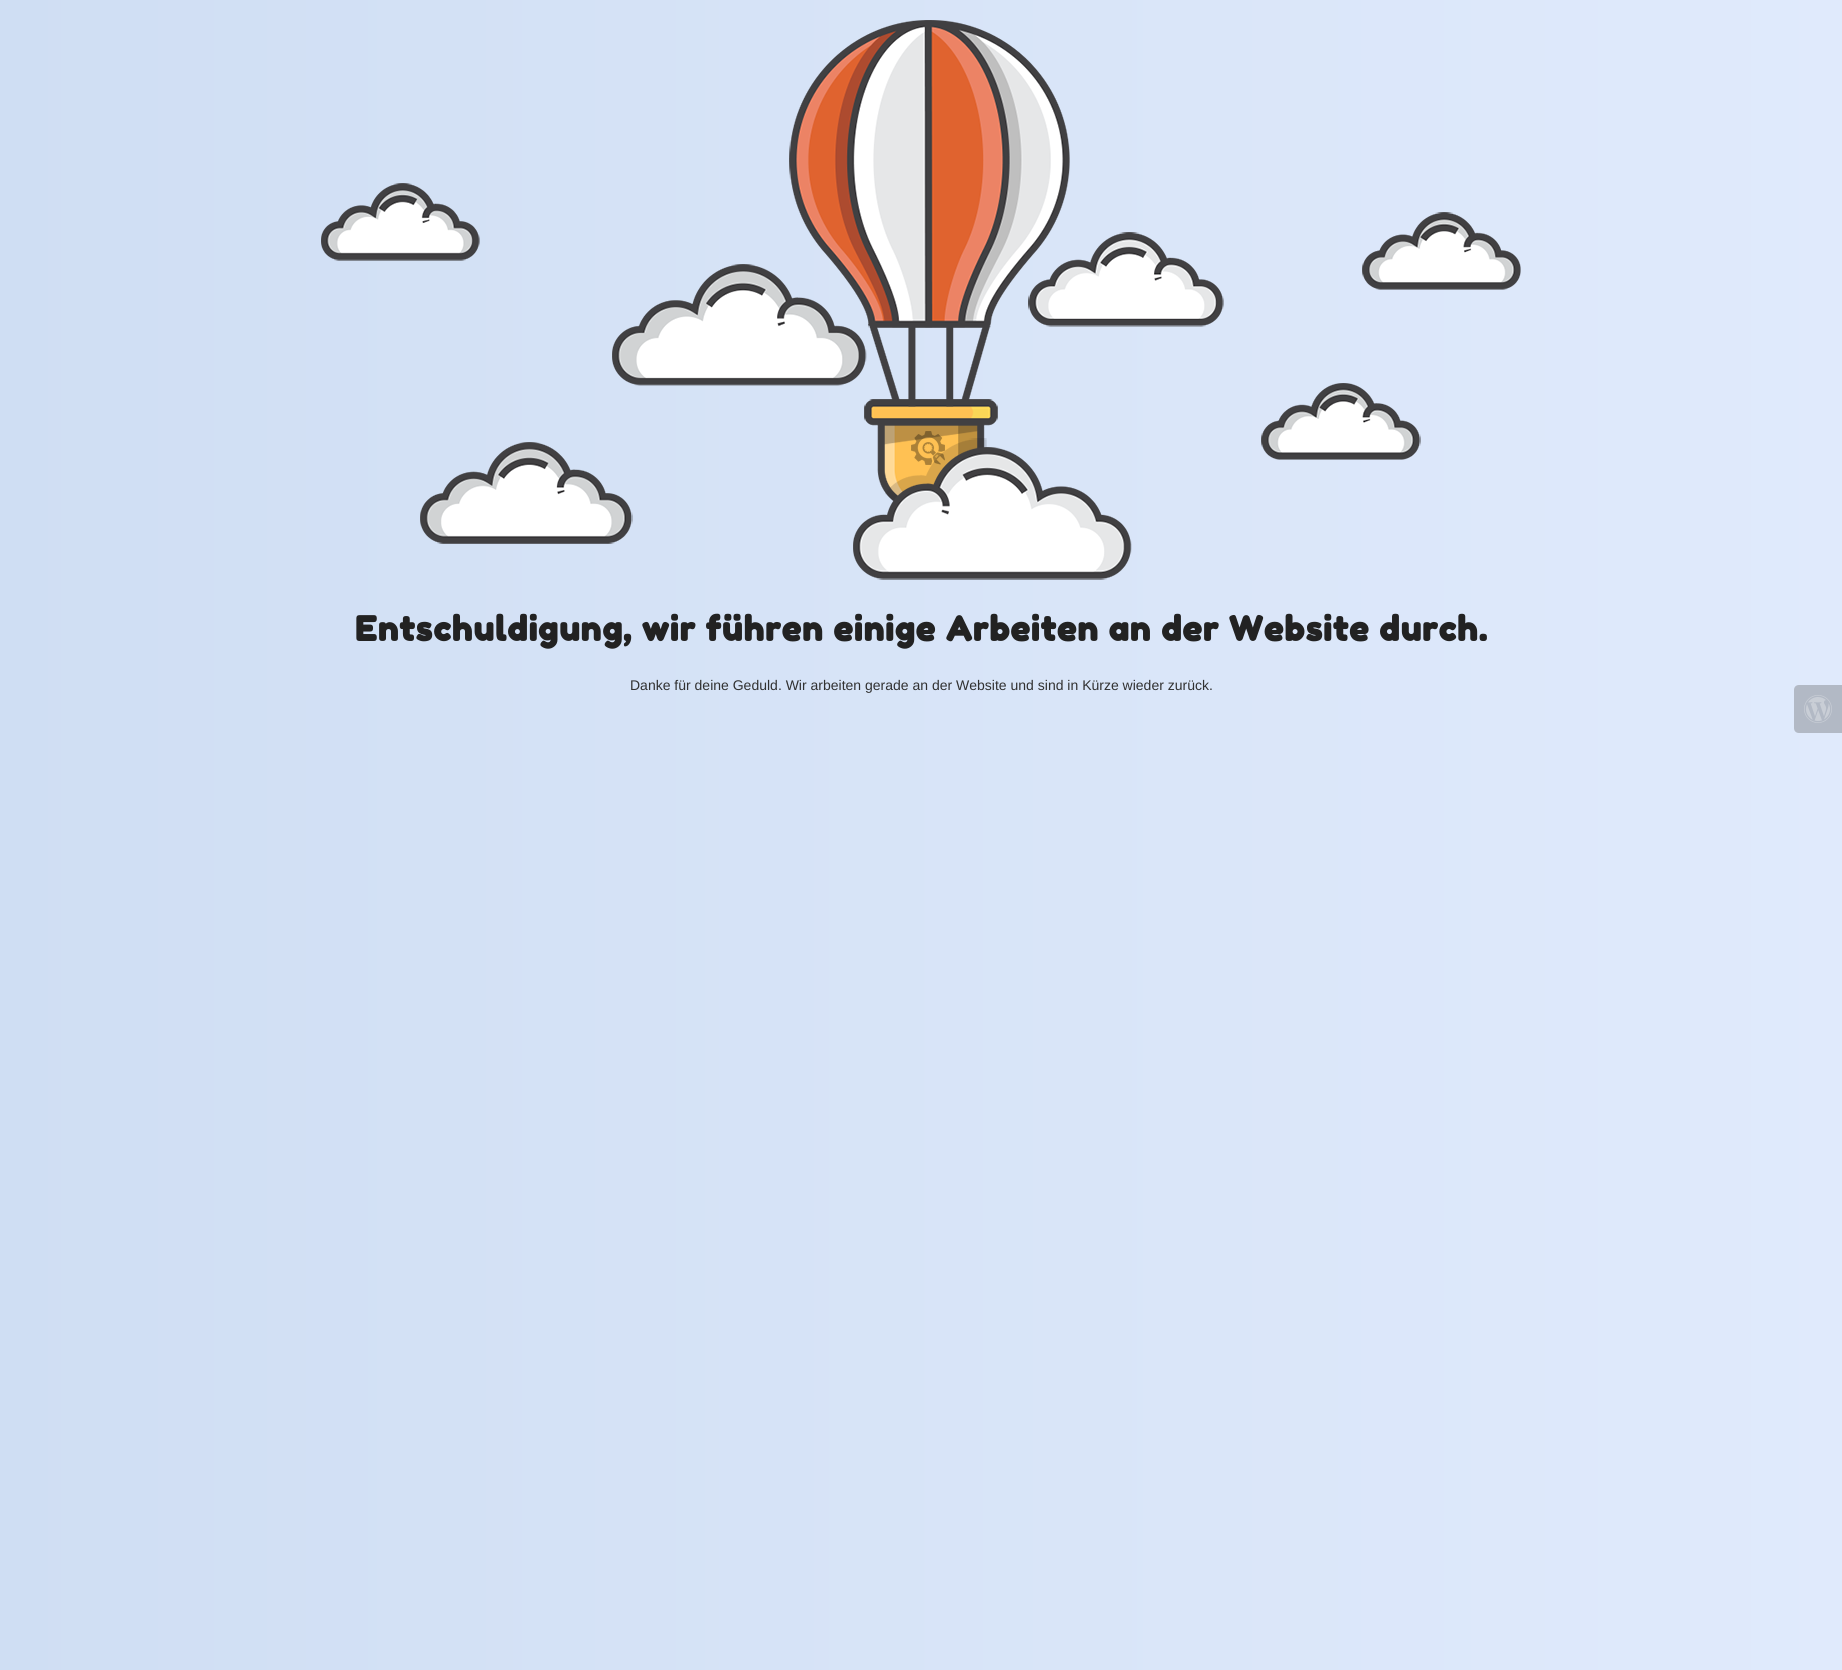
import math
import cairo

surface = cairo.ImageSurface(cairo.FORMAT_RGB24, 1842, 1670)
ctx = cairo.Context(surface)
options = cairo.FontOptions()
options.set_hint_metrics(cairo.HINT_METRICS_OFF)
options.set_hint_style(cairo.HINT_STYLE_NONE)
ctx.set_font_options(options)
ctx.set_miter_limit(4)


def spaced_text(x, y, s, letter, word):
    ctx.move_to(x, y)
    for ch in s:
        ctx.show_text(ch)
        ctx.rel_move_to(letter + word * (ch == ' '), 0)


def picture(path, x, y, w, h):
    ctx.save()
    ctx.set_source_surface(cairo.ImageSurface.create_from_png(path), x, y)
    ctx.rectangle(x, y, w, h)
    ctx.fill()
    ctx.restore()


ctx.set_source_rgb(1, 1, 1)
ctx.paint()
gradient = cairo.LinearGradient(1842, 835, 0, 835)
gradient.add_color_stop_rgba(0, 0.878, 0.918, 0.988, 1)
gradient.add_color_stop_rgba(1, 0.812, 0.871, 0.953, 1)
ctx.set_source(gradient)
ctx.rectangle(0, 0, 1842, 1670)
ctx.fill()
picture("img1.png", 321, 20, 1200, 560)
ctx.select_font_face("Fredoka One", cairo.FONT_SLANT_NORMAL, cairo.FONT_WEIGHT_BOLD)
ctx.set_font_size(34)
ctx.set_source_rgb(0.133, 0.133, 0.133)
spaced_text(355, 641, "Entschuldigung, wir führen einige Arbeiten an der Website durch.", 1, 0)
ctx.select_font_face("Liberation Sans")
ctx.set_font_size(14)
ctx.set_source_rgb(0.192, 0.192, 0.192)
ctx.move_to(630, 690)
ctx.show_text("Danke für deine Geduld. Wir arbeiten gerade an der Website und sind in Kürze wieder zurück.")
ctx.set_source_rgb(0.698, 0.725, 0.773)
ctx.new_path()
ctx.move_to(1799, 685)
ctx.line_to(1842, 685)
ctx.line_to(1842, 733)
ctx.line_to(1799, 733)
ctx.curve_to(1796, 733, 1794, 731, 1794, 728)
ctx.line_to(1794, 690)
ctx.curve_to(1794, 687, 1796, 685, 1799, 685)
ctx.close_path()
ctx.fill()
picture("img2.png", 1804, 695, 28, 28)
surface.write_to_png("page.png")
